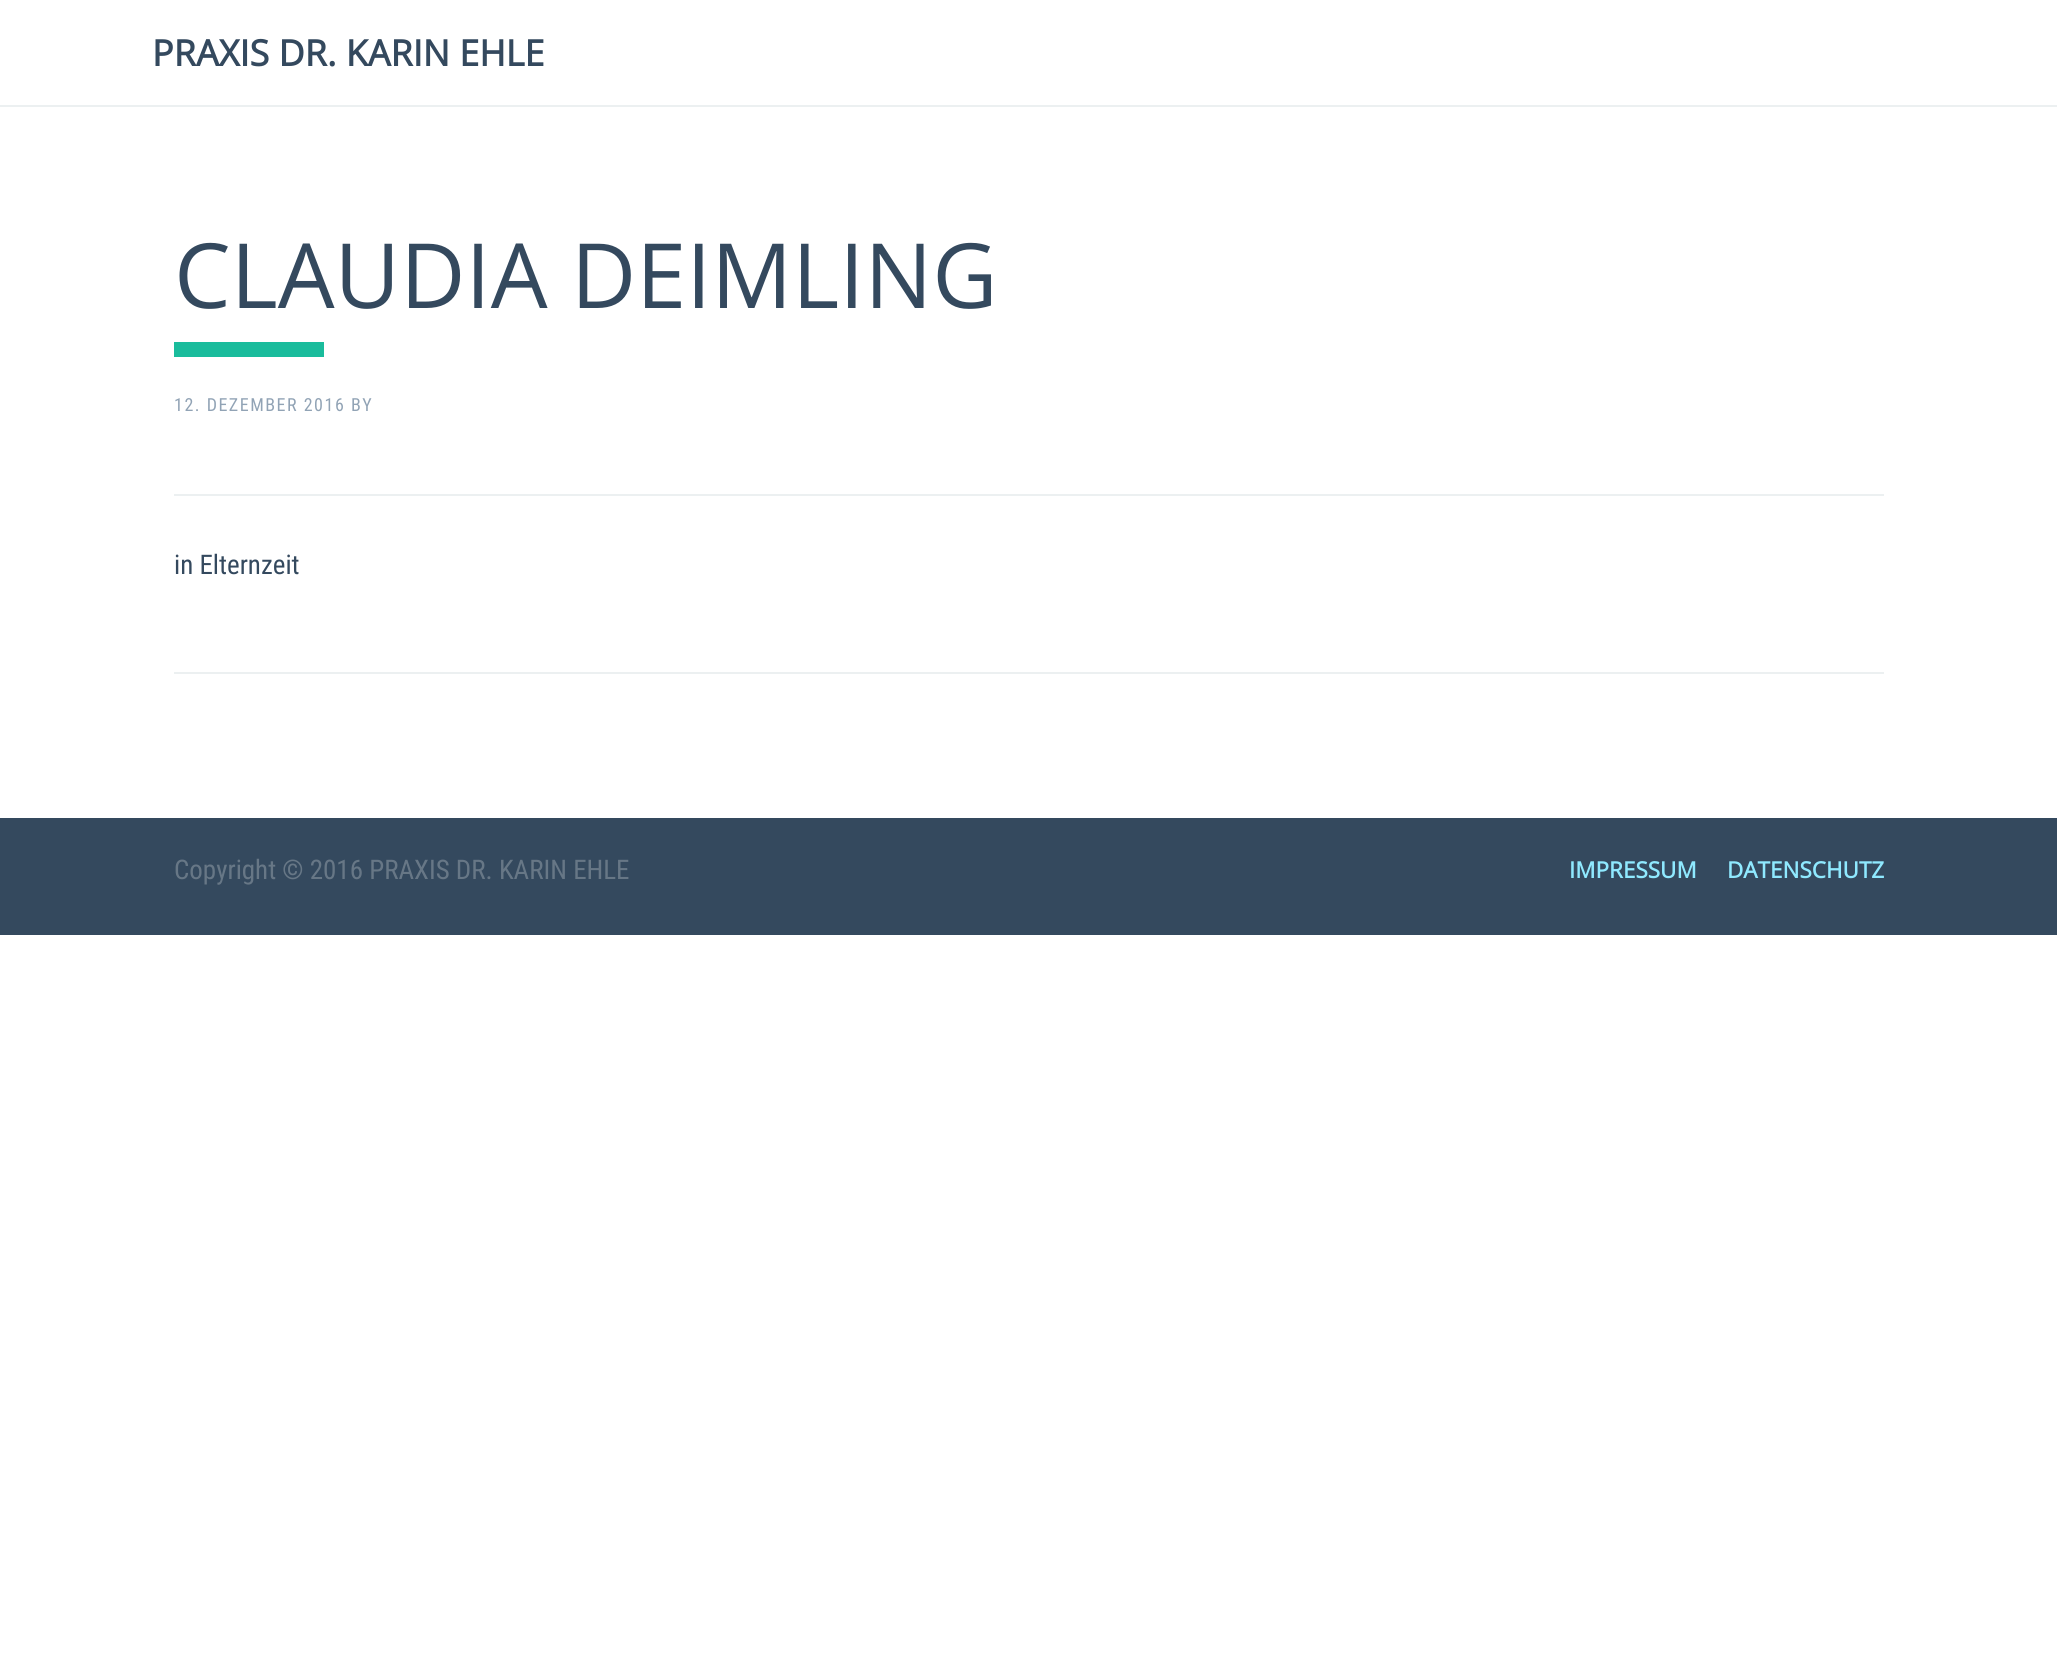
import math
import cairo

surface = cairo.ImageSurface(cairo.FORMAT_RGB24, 2057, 1666)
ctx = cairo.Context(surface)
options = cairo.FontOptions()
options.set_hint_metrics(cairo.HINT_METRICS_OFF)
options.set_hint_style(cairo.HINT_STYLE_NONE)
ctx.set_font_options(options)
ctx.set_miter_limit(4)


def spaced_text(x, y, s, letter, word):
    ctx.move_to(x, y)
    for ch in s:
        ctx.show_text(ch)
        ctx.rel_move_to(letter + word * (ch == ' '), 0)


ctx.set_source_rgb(1, 1, 1)
ctx.paint()
ctx.set_source_rgb(0.925, 0.941, 0.945)
ctx.rectangle(0, 105, 2057, 2)
ctx.fill()
ctx.select_font_face("Open Sans", cairo.FONT_SLANT_NORMAL, cairo.FONT_WEIGHT_BOLD)
ctx.set_font_size(36)
ctx.set_source_rgb(0.204, 0.286, 0.369)
ctx.move_to(152, 66)
ctx.show_text("PRAXIS DR. KARIN EHLE")
ctx.set_source_rgb(0.925, 0.941, 0.945)
ctx.rectangle(174, 494, 1710, 2)
ctx.fill()
ctx.select_font_face("Open Sans")
ctx.set_font_size(90)
ctx.set_source_rgb(0.204, 0.286, 0.369)
ctx.move_to(174, 308)
ctx.show_text("CLAUDIA DEIMLING")
ctx.set_source_rgb(0.102, 0.737, 0.612)
ctx.rectangle(174, 342, 150, 15)
ctx.fill()
ctx.select_font_face("Roboto Condensed")
ctx.set_font_size(18)
ctx.set_source_rgb(0.569, 0.639, 0.71)
spaced_text(174, 411, "12. DEZEMBER 2016 BY", 1.5, 0)
ctx.set_font_size(27)
ctx.set_source_rgb(0.204, 0.286, 0.369)
ctx.move_to(174, 574)
ctx.show_text("in Elternzeit")
ctx.set_source_rgb(0.925, 0.941, 0.945)
ctx.rectangle(174, 672, 1710, 2)
ctx.fill()
ctx.set_source_rgb(0.204, 0.286, 0.369)
ctx.rectangle(0, 818, 2057, 117)
ctx.fill()
ctx.set_source_rgb(0.404, 0.467, 0.525)
ctx.move_to(174, 879)
ctx.show_text("Copyright © 2016 PRAXIS DR. KARIN EHLE")
ctx.select_font_face("Open Sans", cairo.FONT_SLANT_NORMAL, cairo.FONT_WEIGHT_BOLD)
ctx.set_font_size(22.5)
ctx.set_source_rgb(0.561, 0.914, 1)
ctx.move_to(1569, 878)
ctx.show_text("IMPRESSUM")
ctx.move_to(1727, 878)
ctx.show_text("DATENSCHUTZ")
surface.write_to_png("page.png")
